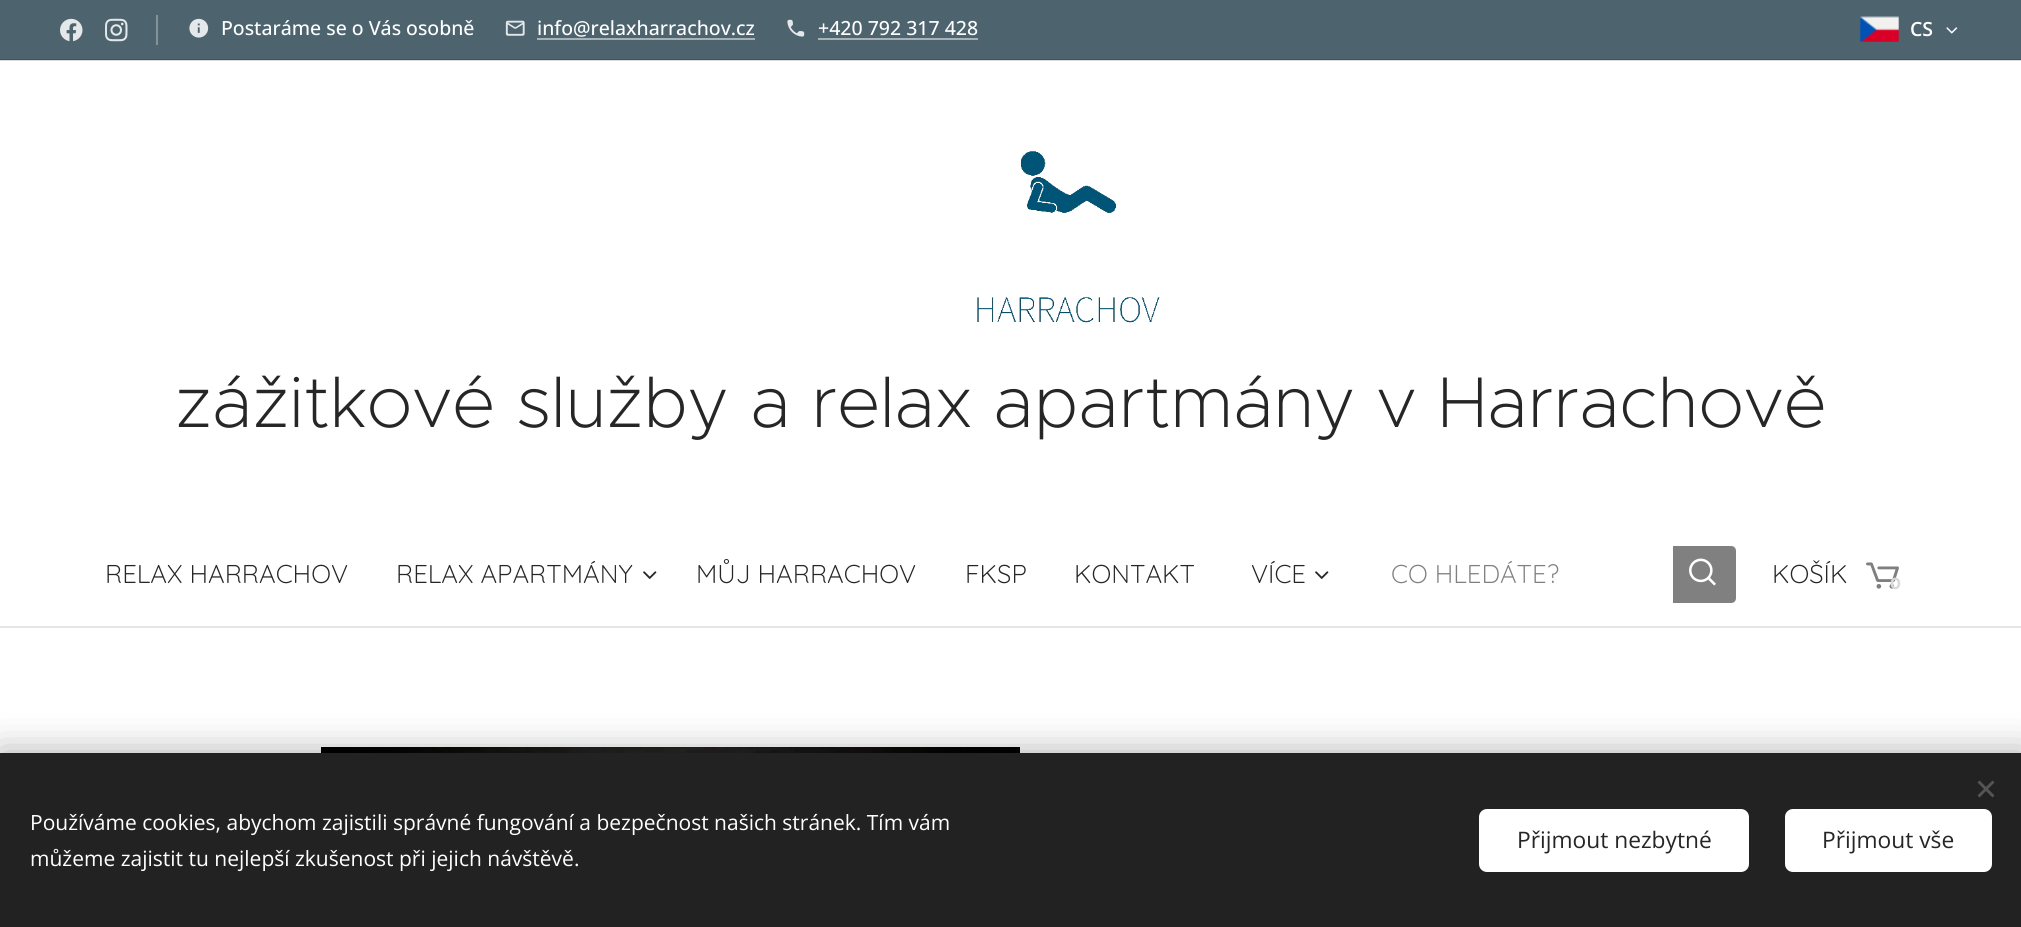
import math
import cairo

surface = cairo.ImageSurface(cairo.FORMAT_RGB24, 2021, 927)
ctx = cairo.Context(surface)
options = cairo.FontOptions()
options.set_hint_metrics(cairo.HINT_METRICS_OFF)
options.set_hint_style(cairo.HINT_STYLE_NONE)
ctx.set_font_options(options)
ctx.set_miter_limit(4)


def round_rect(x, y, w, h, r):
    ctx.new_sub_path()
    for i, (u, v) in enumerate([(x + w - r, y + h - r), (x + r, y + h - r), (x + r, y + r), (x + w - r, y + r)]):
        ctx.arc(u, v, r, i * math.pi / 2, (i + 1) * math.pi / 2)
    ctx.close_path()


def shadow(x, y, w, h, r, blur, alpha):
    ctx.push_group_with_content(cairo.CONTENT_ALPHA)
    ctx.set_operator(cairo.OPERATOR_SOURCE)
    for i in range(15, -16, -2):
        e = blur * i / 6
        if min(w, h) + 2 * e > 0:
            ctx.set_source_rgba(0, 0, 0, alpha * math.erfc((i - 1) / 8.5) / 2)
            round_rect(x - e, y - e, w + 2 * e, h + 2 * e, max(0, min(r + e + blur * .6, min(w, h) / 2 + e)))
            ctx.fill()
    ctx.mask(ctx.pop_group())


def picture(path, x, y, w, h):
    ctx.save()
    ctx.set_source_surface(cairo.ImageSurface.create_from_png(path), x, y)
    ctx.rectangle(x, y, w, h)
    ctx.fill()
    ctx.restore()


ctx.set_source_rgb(1, 1, 1)
ctx.paint()
ctx.set_source_rgb(0.851, 0.851, 0.851)
ctx.rectangle(0, 60, 2021, 1)
ctx.fill()
ctx.set_source_rgb(0.302, 0.392, 0.435)
ctx.rectangle(0, 0, 2021, 59)
ctx.fill()
ctx.set_source_rgb(0.255, 0.333, 0.369)
ctx.rectangle(0, 59, 2021, 1)
ctx.fill()
picture("img1.png", 60, 18, 23, 24)
picture("img2.png", 105, 18, 23, 24)
ctx.set_source_rgb(0.51, 0.576, 0.604)
ctx.rectangle(156, 15, 2, 30)
ctx.fill()
picture("img3.png", 189, 18, 20, 20)
ctx.select_font_face("Open Sans Medium")
ctx.set_font_size(19.5)
ctx.set_source_rgb(1, 1, 1)
ctx.move_to(221, 35)
ctx.show_text("Postaráme se o Vás osobně")
picture("img4.png", 505, 20, 20, 16)
ctx.move_to(537, 35)
ctx.show_text("info@relaxharrachov.cz")
ctx.set_source_rgb(0.651, 0.698, 0.718)
ctx.rectangle(537, 38, 218, 2)
ctx.fill()
picture("img5.png", 787, 19, 18, 18)
ctx.set_source_rgb(1, 1, 1)
ctx.move_to(818, 35)
ctx.show_text("+420 792 317 428")
ctx.set_source_rgb(0.651, 0.698, 0.718)
ctx.rectangle(818, 38, 160, 2)
ctx.fill()
picture("img6.png", 1860, 16, 39, 26)
ctx.select_font_face("Open Sans SemiBold")
ctx.set_source_rgb(1, 1, 1)
ctx.move_to(1910, 36)
ctx.show_text("CS")
picture("img7.png", 1946, 27, 12, 7)
picture("img8.png", 977, 151, 183, 172)
ctx.select_font_face("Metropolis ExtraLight")
ctx.set_font_size(72)
ctx.set_source_rgb(0.149, 0.149, 0.149)
ctx.move_to(175, 427)
ctx.show_text("zážitkové služby a relax apartmány v Harrachově")
ctx.select_font_face("Quicksand Light")
ctx.set_font_size(25.75)
ctx.move_to(105, 583)
ctx.show_text("RELAX HARRACHOV")
ctx.move_to(396, 583)
ctx.show_text("RELAX APARTMÁNY")
picture("img9.png", 643, 571, 14, 8)
ctx.move_to(696, 583)
ctx.show_text("MŮJ HARRACHOV")
ctx.move_to(965, 583)
ctx.show_text("FKSP")
ctx.move_to(1074, 583)
ctx.show_text("KONTAKT")
ctx.move_to(1251, 583)
ctx.show_text("VÍCE")
picture("img9.png", 1315, 571, 14, 8)
ctx.set_source_rgb(0.502, 0.502, 0.502)
ctx.move_to(1391, 583)
ctx.show_text("CO HLEDÁTE?")
ctx.new_path()
ctx.move_to(1673, 546)
ctx.line_to(1731, 546)
ctx.curve_to(1734, 546, 1736, 548, 1736, 551)
ctx.line_to(1736, 598)
ctx.curve_to(1736, 601, 1734, 603, 1731, 603)
ctx.line_to(1673, 603)
ctx.close_path()
ctx.fill()
picture("img10.png", 1689, 558, 27, 28)
ctx.set_source_rgb(0.149, 0.149, 0.149)
ctx.move_to(1772, 583)
ctx.show_text("KOŠÍK")
picture("img11.png", 1866, 562, 33, 27)
ctx.select_font_face("Montserrat", cairo.FONT_SLANT_NORMAL, cairo.FONT_WEIGHT_BOLD)
ctx.set_font_size(16)
ctx.set_source_rgb(0.851, 0.851, 0.851)
ctx.move_to(1890, 589)
ctx.show_text("0")
ctx.set_source_rgb(0.902, 0.902, 0.902)
ctx.rectangle(0, 626, 2021, 2)
ctx.fill()
picture("img12.png", 321, 747, 699, 6)
ctx.set_source_rgb(0, 0, 0)
shadow(0, 753, 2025, 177, 0, 19, 0.33)
ctx.set_source_rgb(0.133, 0.133, 0.133)
ctx.rectangle(0, 753, 2021, 174)
ctx.fill()
ctx.set_source_rgb(0.333, 0.333, 0.333)
ctx.new_path()
ctx.move_to(1977.5, 795.5)
ctx.line_to(1992.5, 780.5)
ctx.line_to(1994.5, 782.5)
ctx.line_to(1979.5, 797.5)
ctx.close_path()
ctx.fill()
ctx.new_path()
ctx.move_to(1979.5, 780.5)
ctx.line_to(1994.5, 795.5)
ctx.line_to(1992.5, 797.5)
ctx.line_to(1977.5, 782.5)
ctx.close_path()
ctx.fill()
ctx.select_font_face("Open Sans")
ctx.set_font_size(21)
ctx.set_source_rgb(1, 1, 1)
ctx.move_to(30, 830)
ctx.show_text("Používáme cookies, abychom zajistili správné fungování a bezpečnost našich stránek. Tím vám")
ctx.move_to(30, 866)
ctx.show_text("můžeme zajistit tu nejlepší zkušenost při jejich návštěvě.")
round_rect(1479, 809, 270, 63, 8)
ctx.fill()
ctx.set_font_size(22.75)
ctx.set_source_rgb(0.149, 0.149, 0.149)
ctx.move_to(1517, 848)
ctx.show_text("Přijmout nezbytné")
ctx.set_source_rgb(1, 1, 1)
round_rect(1785, 809, 207, 63, 8)
ctx.fill()
ctx.set_source_rgb(0.149, 0.149, 0.149)
ctx.move_to(1822, 848)
ctx.show_text("Přijmout vše")
surface.write_to_png("page.png")
